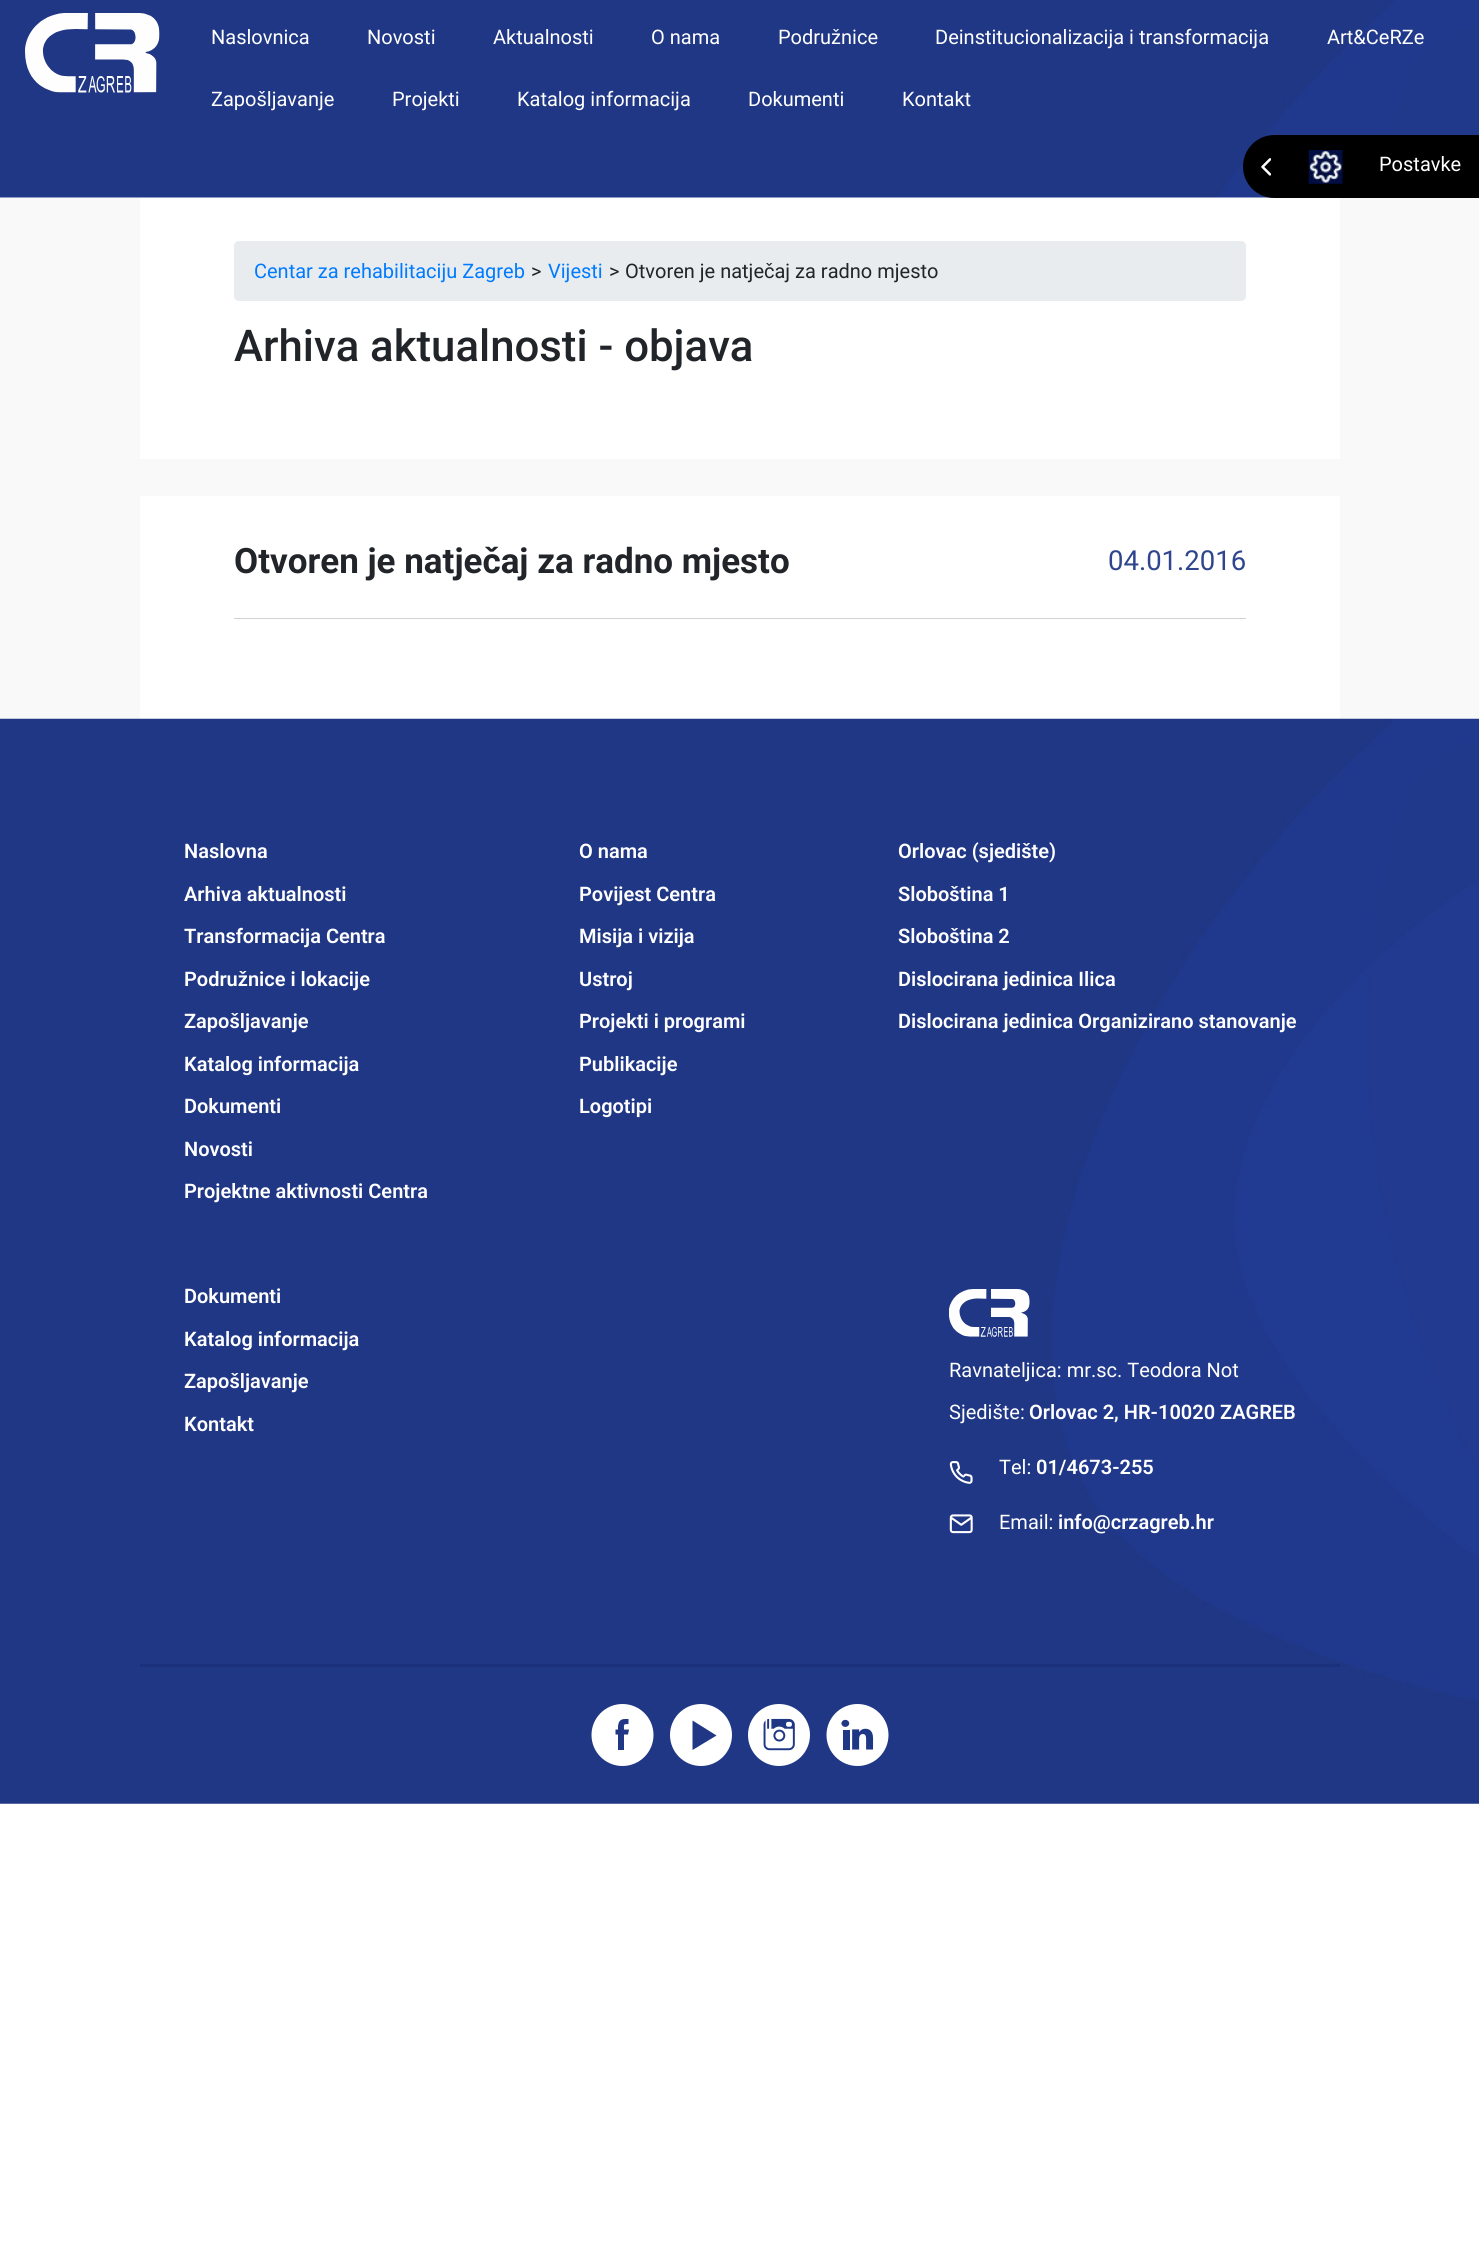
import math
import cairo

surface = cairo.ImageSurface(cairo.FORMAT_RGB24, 1479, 2242)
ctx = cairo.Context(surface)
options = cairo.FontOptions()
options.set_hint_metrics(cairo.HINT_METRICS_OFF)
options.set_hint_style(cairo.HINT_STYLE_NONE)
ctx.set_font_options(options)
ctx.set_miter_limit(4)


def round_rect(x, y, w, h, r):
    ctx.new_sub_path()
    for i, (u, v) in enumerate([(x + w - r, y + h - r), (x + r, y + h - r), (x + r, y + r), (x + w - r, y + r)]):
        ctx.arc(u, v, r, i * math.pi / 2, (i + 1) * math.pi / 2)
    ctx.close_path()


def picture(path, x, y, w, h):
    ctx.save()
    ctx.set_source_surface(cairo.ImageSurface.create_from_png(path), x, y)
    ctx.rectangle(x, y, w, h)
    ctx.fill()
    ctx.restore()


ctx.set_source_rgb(1, 1, 1)
ctx.paint()
picture("img1.png", 0, 0, 1479, 198)
picture("img2.png", 25, 13, 135, 80)
ctx.select_font_face("Roboto")
ctx.set_font_size(20)
ctx.set_source_rgb(1, 1, 1)
ctx.move_to(211, 44)
ctx.show_text("Naslovnica")
ctx.move_to(367, 44)
ctx.show_text("Novosti")
ctx.move_to(493, 44)
ctx.show_text("Aktualnosti")
ctx.move_to(651, 44)
ctx.show_text("O nama")
ctx.move_to(778, 44)
ctx.show_text("Podružnice")
ctx.move_to(935, 44)
ctx.show_text("Deinstitucionalizacija i transformacija")
ctx.move_to(1327, 44)
ctx.show_text("Art&CeRZe")
ctx.move_to(211, 106)
ctx.show_text("Zapošljavanje")
ctx.move_to(392, 106)
ctx.show_text("Projekti")
ctx.move_to(517, 106)
ctx.show_text("Katalog informacija")
ctx.move_to(748, 106)
ctx.show_text("Dokumenti")
ctx.move_to(902, 106)
ctx.show_text("Kontakt")
ctx.set_source_rgb(0, 0, 0)
ctx.new_path()
ctx.move_to(1274.5, 135)
ctx.line_to(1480, 135)
ctx.line_to(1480, 198)
ctx.line_to(1274.5, 198)
ctx.curve_to(1257, 198, 1243, 184, 1243, 166.5)
ctx.curve_to(1243, 149, 1257, 135, 1274.5, 135)
ctx.close_path()
ctx.fill()
picture("img3.png", 1261, 158, 10, 18)
picture("img4.png", 1308, 150, 35, 34)
ctx.set_source_rgb(1, 1, 1)
ctx.move_to(1379, 171)
ctx.show_text("Postavke")
ctx.set_source_rgb(0.973, 0.976, 0.98)
ctx.rectangle(0, 198, 1479, 521)
ctx.fill()
ctx.set_source_rgb(1, 1, 1)
ctx.rectangle(140, 198, 1200, 261)
ctx.fill()
ctx.set_source_rgb(0.914, 0.925, 0.937)
round_rect(234, 241, 1012, 60, 5)
ctx.fill()
ctx.set_source_rgb(0, 0.482, 1)
ctx.move_to(254, 278)
ctx.show_text("Centar za rehabilitaciju Zagreb")
ctx.set_source_rgb(0.129, 0.145, 0.161)
ctx.move_to(531, 278)
ctx.show_text(">")
ctx.set_source_rgb(0, 0.482, 1)
ctx.move_to(548, 278)
ctx.show_text("Vijesti")
ctx.set_source_rgb(0.129, 0.145, 0.161)
ctx.move_to(609, 278)
ctx.show_text(">")
ctx.move_to(625, 278)
ctx.show_text("Otvoren je natječaj za radno mjesto")
ctx.select_font_face("Roboto Medium")
ctx.set_font_size(43.75)
ctx.move_to(234, 361)
ctx.show_text("Arhiva aktualnosti - objava")
ctx.set_source_rgb(1, 1, 1)
ctx.rectangle(140, 496, 1200, 223)
ctx.fill()
ctx.set_source_rgb(0.827, 0.827, 0.827)
ctx.rectangle(234, 618, 1012, 1)
ctx.fill()
ctx.select_font_face("Roboto", cairo.FONT_SLANT_NORMAL, cairo.FONT_WEIGHT_BOLD)
ctx.set_font_size(35)
ctx.set_source_rgb(0.129, 0.145, 0.161)
ctx.move_to(234, 573)
ctx.show_text("Otvoren je natječaj za radno mjesto")
ctx.select_font_face("Roboto")
ctx.set_font_size(27.5)
ctx.set_source_rgb(0.184, 0.271, 0.557)
ctx.move_to(1108, 570)
ctx.show_text("04.01.2016")
picture("img5.png", 0, 718, 1479, 1086)
ctx.set_source_rgb(0.106, 0.192, 0.486)
ctx.rectangle(140, 1664, 1200, 3)
ctx.fill()
ctx.select_font_face("Roboto SemiBold")
ctx.set_font_size(20)
ctx.set_source_rgb(1, 1, 1)
ctx.move_to(184, 858)
ctx.show_text("Naslovna")
ctx.move_to(184, 901)
ctx.show_text("Arhiva aktualnosti")
ctx.move_to(184, 943)
ctx.show_text("Transformacija Centra")
ctx.move_to(184, 986)
ctx.show_text("Podružnice i lokacije")
ctx.move_to(184, 1028)
ctx.show_text("Zapošljavanje")
ctx.move_to(184, 1071)
ctx.show_text("Katalog informacija")
ctx.move_to(184, 1113)
ctx.show_text("Dokumenti")
ctx.move_to(184, 1156)
ctx.show_text("Novosti")
ctx.move_to(184, 1198)
ctx.show_text("Projektne aktivnosti Centra")
ctx.move_to(579, 858)
ctx.show_text("O nama")
ctx.move_to(579, 901)
ctx.show_text("Povijest Centra")
ctx.move_to(579, 943)
ctx.show_text("Misija i vizija")
ctx.move_to(579, 986)
ctx.show_text("Ustroj")
ctx.move_to(579, 1028)
ctx.show_text("Projekti i programi")
ctx.move_to(579, 1071)
ctx.show_text("Publikacije")
ctx.move_to(579, 1113)
ctx.show_text("Logotipi")
ctx.move_to(898, 858)
ctx.show_text("Orlovac (sjedište)")
ctx.move_to(898, 901)
ctx.show_text("Sloboština 1")
ctx.move_to(898, 943)
ctx.show_text("Sloboština 2")
ctx.move_to(898, 986)
ctx.show_text("Dislocirana jedinica Ilica")
ctx.move_to(898, 1028)
ctx.show_text("Dislocirana jedinica Organizirano stanovanje")
ctx.move_to(184, 1303)
ctx.show_text("Dokumenti")
ctx.move_to(184, 1346)
ctx.show_text("Katalog informacija")
ctx.move_to(184, 1388)
ctx.show_text("Zapošljavanje")
ctx.move_to(184, 1431)
ctx.show_text("Kontakt")
picture("img6.png", 949, 1289, 81, 48)
ctx.select_font_face("Roboto")
ctx.move_to(949, 1377)
ctx.show_text("Ravnateljica: mr.sc. Teodora Not")
ctx.move_to(949, 1419)
ctx.show_text("Sjedište:")
ctx.select_font_face("Roboto SemiBold")
ctx.move_to(1029, 1419)
ctx.show_text("Orlovac 2, HR-10020 ZAGREB")
picture("img7.png", 949, 1461, 24, 23)
ctx.select_font_face("Roboto")
ctx.move_to(999, 1474)
ctx.show_text("Tel:")
ctx.select_font_face("Roboto SemiBold")
ctx.move_to(1036, 1474)
ctx.show_text("01/4673-255")
picture("img8.png", 949, 1514, 24, 20)
ctx.select_font_face("Roboto")
ctx.move_to(999, 1529)
ctx.show_text("Email:")
ctx.select_font_face("Roboto SemiBold")
ctx.move_to(1058, 1529)
ctx.show_text("info@crzagreb.hr")
ctx.new_path()
ctx.arc(622.5, 1735, 31, 0, 2 * math.pi)
ctx.fill()
ctx.set_source_rgb(0.125, 0.216, 0.522)
ctx.set_fill_rule(cairo.FILL_RULE_EVEN_ODD)
ctx.new_path()
ctx.move_to(618, 1750)
ctx.line_to(624, 1750)
ctx.line_to(624, 1734.5)
ctx.line_to(628, 1734.5)
ctx.line_to(629, 1729.5)
ctx.line_to(624, 1729.5)
ctx.curve_to(624, 1724.5, 623, 1724, 628.5, 1724)
ctx.line_to(628.5, 1719)
ctx.line_to(625, 1719)
ctx.curve_to(619.5, 1719, 618.5, 1722.5, 618, 1726)
ctx.line_to(618, 1729.5)
ctx.line_to(615.5, 1729.5)
ctx.line_to(615.5, 1734.5)
ctx.line_to(618, 1734.5)
ctx.close_path()
ctx.fill()
ctx.set_source_rgb(1, 1, 1)
ctx.arc(701, 1735, 31, 0, 2 * math.pi)
ctx.fill()
ctx.set_source_rgb(0.125, 0.216, 0.522)
ctx.new_path()
ctx.move_to(692.5, 1720.5)
ctx.line_to(692.5, 1750)
ctx.line_to(716.5, 1735.5)
ctx.close_path()
ctx.fill()
picture("img9.png", 748, 1704, 62, 62)
picture("img10.png", 826, 1704, 63, 62)
surface.write_to_png("page.png")
